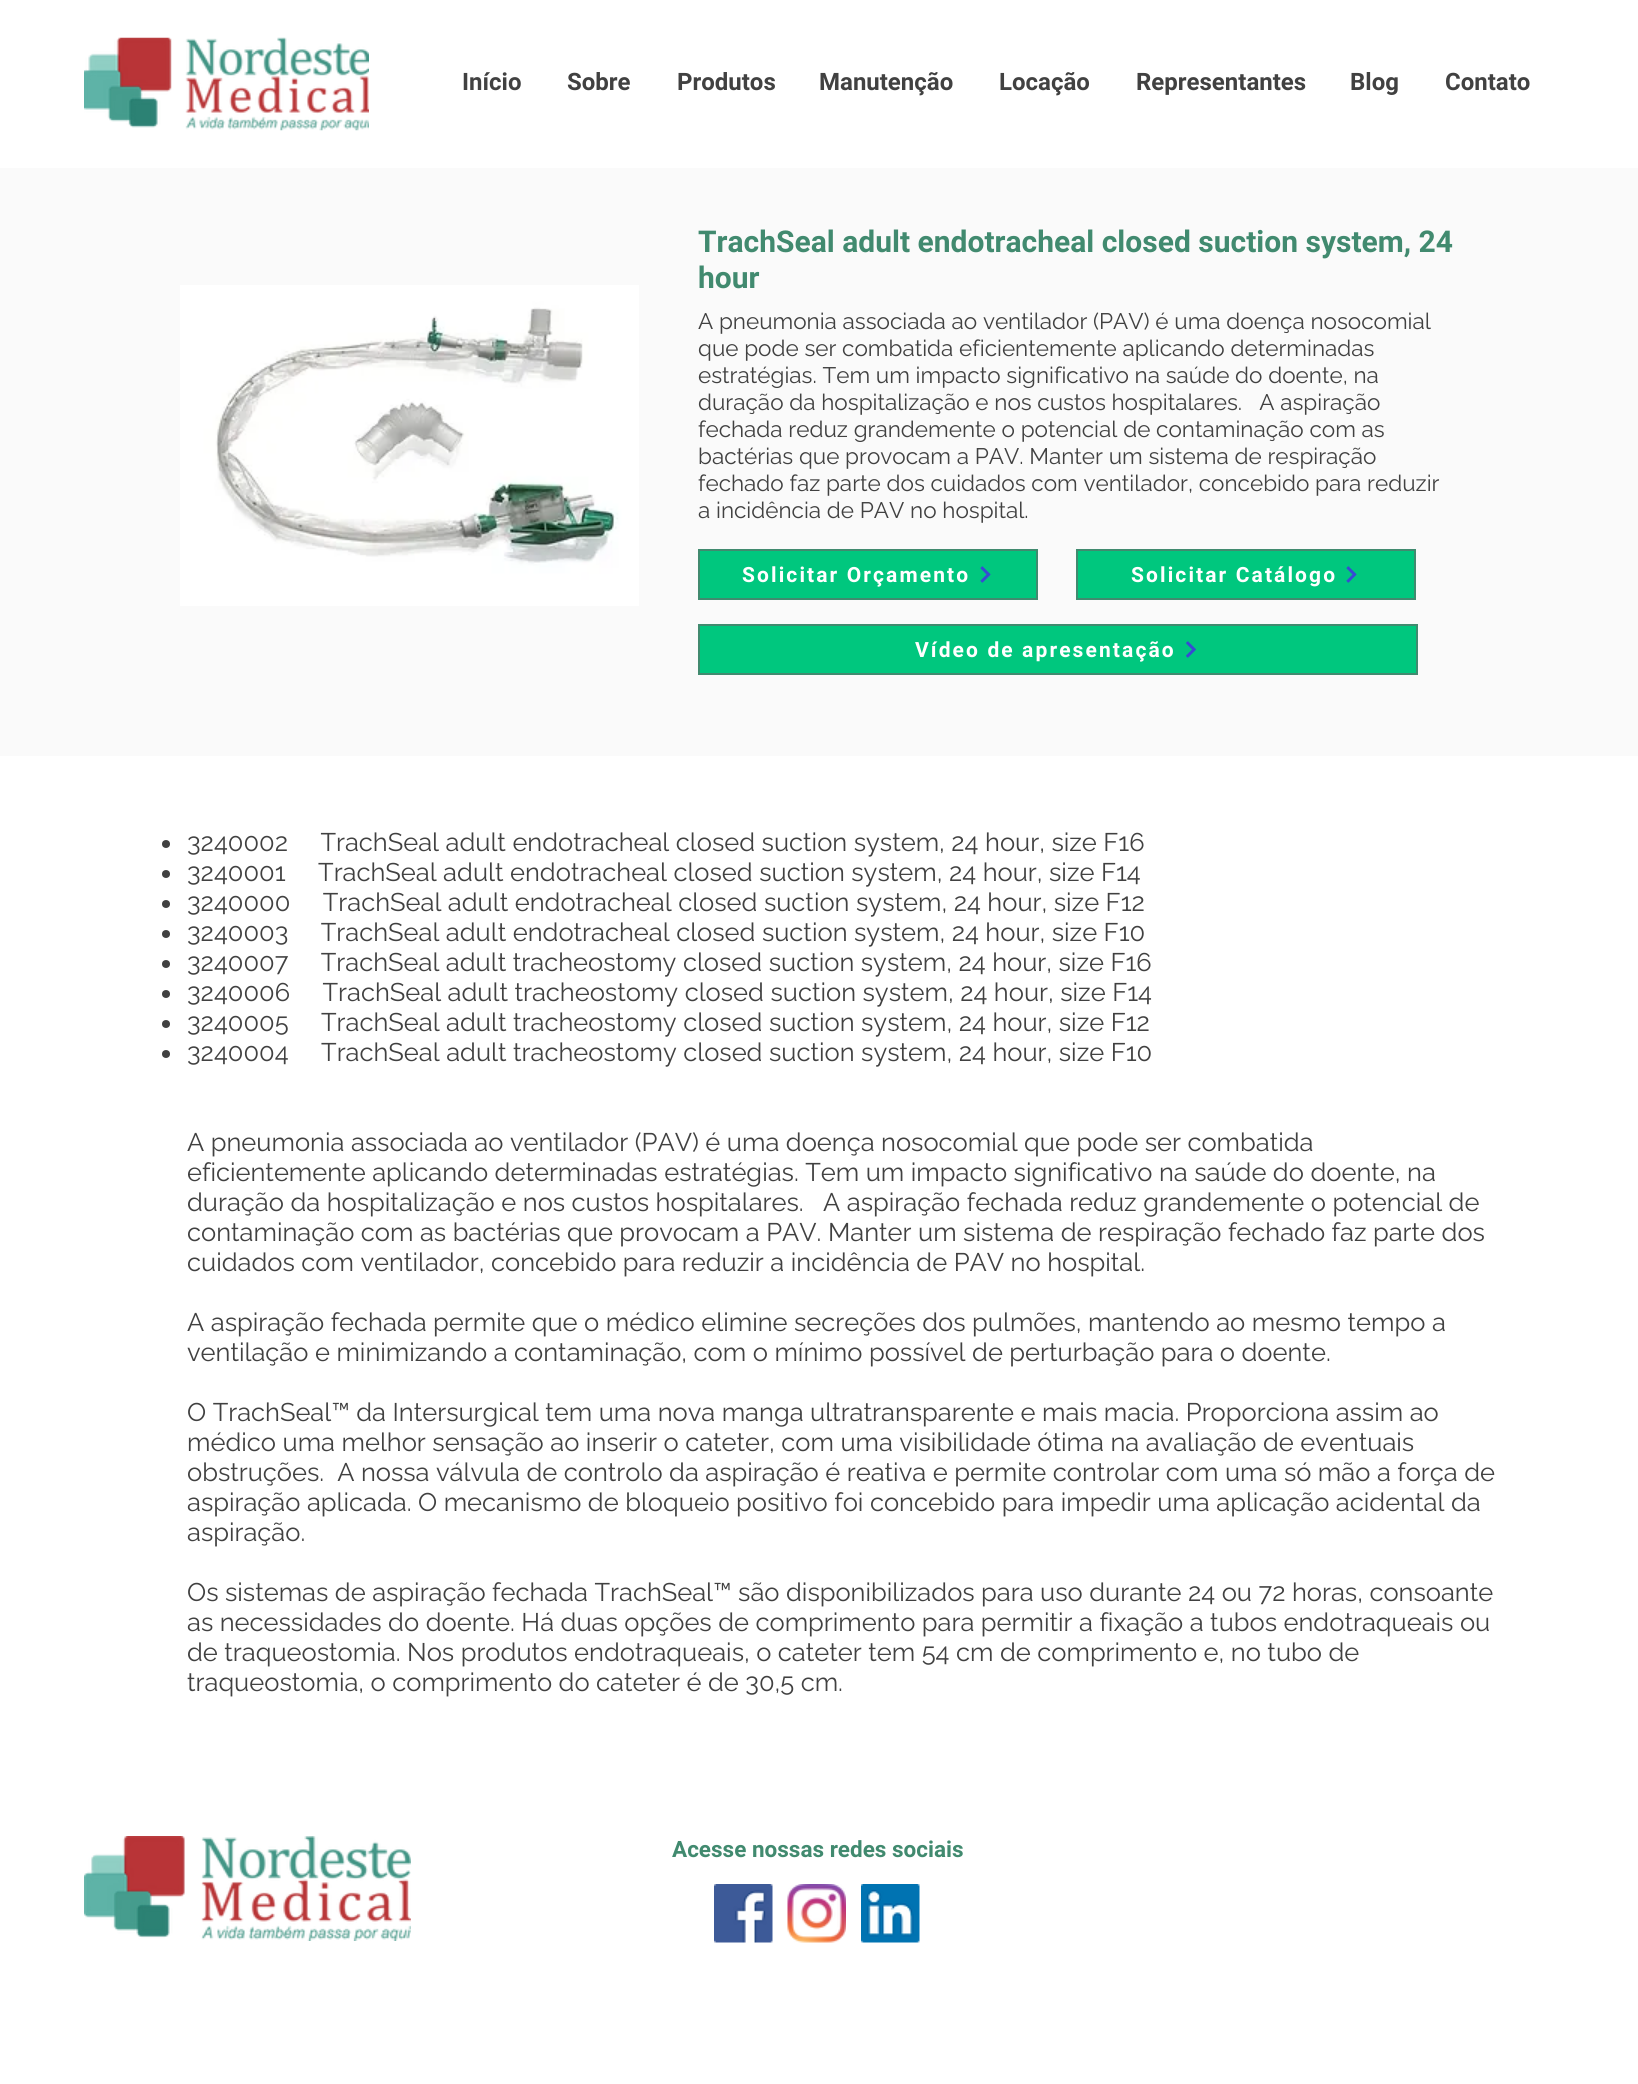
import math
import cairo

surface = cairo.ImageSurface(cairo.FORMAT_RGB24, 1638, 2084)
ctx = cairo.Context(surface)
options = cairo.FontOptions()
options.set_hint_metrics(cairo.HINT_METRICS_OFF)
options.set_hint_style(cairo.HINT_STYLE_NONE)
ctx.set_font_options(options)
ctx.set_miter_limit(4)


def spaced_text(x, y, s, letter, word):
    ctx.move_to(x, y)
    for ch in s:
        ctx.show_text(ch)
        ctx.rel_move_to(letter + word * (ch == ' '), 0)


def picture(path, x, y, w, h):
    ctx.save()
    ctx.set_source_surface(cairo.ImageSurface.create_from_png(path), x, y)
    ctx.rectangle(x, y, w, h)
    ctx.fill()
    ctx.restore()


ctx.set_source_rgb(1, 1, 1)
ctx.paint()
picture("img1.png", 84, 37, 285, 94)
ctx.select_font_face("Roboto", cairo.FONT_SLANT_NORMAL, cairo.FONT_WEIGHT_BOLD)
ctx.set_font_size(24)
ctx.set_source_rgb(0.255, 0.255, 0.255)
ctx.move_to(462, 90)
ctx.show_text("Início")
ctx.move_to(567, 90)
ctx.show_text("Sobre")
ctx.move_to(677, 90)
ctx.show_text("Produtos")
ctx.move_to(819, 90)
ctx.show_text("Manutenção")
ctx.move_to(999, 90)
ctx.show_text("Locação")
ctx.move_to(1136, 90)
ctx.show_text("Representantes")
ctx.move_to(1350, 90)
ctx.show_text("Blog")
ctx.move_to(1445, 90)
ctx.show_text("Contato")
ctx.set_source_rgb(0.98, 0.98, 0.98)
ctx.rectangle(0, 168, 1638, 588)
ctx.fill()
ctx.set_font_size(30)
ctx.set_source_rgb(0.255, 0.541, 0.435)
ctx.move_to(698, 252)
ctx.show_text("TrachSeal adult endotracheal closed suction system, 24")
ctx.move_to(698, 288)
ctx.show_text("hour")
picture("img2.png", 180, 285, 459, 321)
ctx.select_font_face("Raleway")
ctx.set_font_size(22.5)
ctx.set_source_rgb(0.255, 0.255, 0.255)
ctx.move_to(698, 329)
ctx.show_text("A pneumonia associada ao ventilador (PAV) é uma doença nosocomial")
ctx.move_to(698, 356)
ctx.show_text("que pode ser combatida eficientemente aplicando determinadas")
ctx.move_to(698, 383)
ctx.show_text("estratégias. Tem um impacto significativo na saúde do doente, na")
ctx.move_to(698, 410)
ctx.show_text("duração da hospitalização e nos custos hospitalares.   A aspiração")
ctx.move_to(698, 437)
ctx.show_text("fechada reduz grandemente o potencial de contaminação com as")
ctx.move_to(698, 464)
ctx.show_text("bactérias que provocam a PAV. Manter um sistema de respiração")
ctx.move_to(698, 491)
ctx.show_text("fechado faz parte dos cuidados com ventilador, concebido para reduzir")
ctx.move_to(698, 518)
ctx.show_text("a incidência de PAV no hospital.")
ctx.set_source_rgb(0, 0.78, 0.494)
ctx.rectangle(699, 550, 338, 49)
ctx.fill_preserve()
ctx.set_source_rgb(0.255, 0.541, 0.435)
ctx.stroke()
ctx.select_font_face("Roboto", cairo.FONT_SLANT_NORMAL, cairo.FONT_WEIGHT_BOLD)
ctx.set_font_size(21)
ctx.set_source_rgb(1, 1, 1)
spaced_text(742, 582, "Solicitar Orçamento", 2.1, 0)
picture("img3.png", 980, 566, 11, 17)
ctx.set_source_rgb(0, 0.78, 0.494)
ctx.rectangle(1077, 550, 338, 49)
ctx.fill_preserve()
ctx.set_source_rgb(0.255, 0.541, 0.435)
ctx.stroke()
ctx.set_source_rgb(1, 1, 1)
spaced_text(1131, 582, "Solicitar Catálogo", 2.1, 0)
picture("img3.png", 1346, 566, 11, 17)
ctx.set_source_rgb(0, 0.78, 0.494)
ctx.rectangle(699, 625, 718, 49)
ctx.fill_preserve()
ctx.set_source_rgb(0.255, 0.541, 0.435)
ctx.stroke()
ctx.set_source_rgb(1, 1, 1)
spaced_text(915, 657, "Vídeo de apresentação", 2.1, 0)
picture("img4.png", 1186, 641, 10, 17)
ctx.set_source_rgb(0.255, 0.255, 0.255)
ctx.arc(166, 844, 4, 0, 2 * math.pi)
ctx.fill()
ctx.select_font_face("Raleway")
ctx.set_font_size(25.5)
ctx.move_to(187, 851)
ctx.show_text("3240002     TrachSeal adult endotracheal closed suction system, 24 hour, size F16")
ctx.new_path()
ctx.arc(166, 874, 4, 0, 2 * math.pi)
ctx.fill()
ctx.move_to(187, 881)
ctx.show_text("3240001     TrachSeal adult endotracheal closed suction system, 24 hour, size F14")
ctx.new_path()
ctx.arc(166, 904, 4, 0, 2 * math.pi)
ctx.fill()
ctx.move_to(187, 911)
ctx.show_text("3240000     TrachSeal adult endotracheal closed suction system, 24 hour, size F12")
ctx.new_path()
ctx.arc(166, 934, 4, 0, 2 * math.pi)
ctx.fill()
ctx.move_to(187, 941)
ctx.show_text("3240003     TrachSeal adult endotracheal closed suction system, 24 hour, size F10")
ctx.new_path()
ctx.arc(166, 964, 4, 0, 2 * math.pi)
ctx.fill()
ctx.move_to(187, 971)
ctx.show_text("3240007     TrachSeal adult tracheostomy closed suction system, 24 hour, size F16")
ctx.new_path()
ctx.arc(166, 994, 4, 0, 2 * math.pi)
ctx.fill()
ctx.move_to(187, 1001)
ctx.show_text("3240006     TrachSeal adult tracheostomy closed suction system, 24 hour, size F14")
ctx.new_path()
ctx.arc(166, 1024, 4, 0, 2 * math.pi)
ctx.fill()
ctx.move_to(187, 1031)
ctx.show_text("3240005     TrachSeal adult tracheostomy closed suction system, 24 hour, size F12")
ctx.new_path()
ctx.arc(166, 1054, 4, 0, 2 * math.pi)
ctx.fill()
ctx.move_to(187, 1061)
ctx.show_text("3240004     TrachSeal adult tracheostomy closed suction system, 24 hour, size F10")
ctx.move_to(187, 1151)
ctx.show_text("A pneumonia associada ao ventilador (PAV) é uma doença nosocomial que pode ser combatida")
ctx.move_to(187, 1181)
ctx.show_text("eficientemente aplicando determinadas estratégias. Tem um impacto significativo na saúde do doente, na")
ctx.move_to(187, 1211)
ctx.show_text("duração da hospitalização e nos custos hospitalares.   A aspiração fechada reduz grandemente o potencial de")
ctx.move_to(187, 1241)
ctx.show_text("contaminação com as bactérias que provocam a PAV. Manter um sistema de respiração fechado faz parte dos")
ctx.move_to(187, 1271)
ctx.show_text("cuidados com ventilador, concebido para reduzir a incidência de PAV no hospital.")
ctx.move_to(187, 1331)
ctx.show_text("A aspiração fechada permite que o médico elimine secreções dos pulmões, mantendo ao mesmo tempo a")
ctx.move_to(187, 1361)
ctx.show_text("ventilação e minimizando a contaminação, com o mínimo possível de perturbação para o doente.")
ctx.move_to(187, 1421)
ctx.show_text("O TrachSeal™ da Intersurgical tem uma nova manga ultratransparente e mais macia. Proporciona assim ao")
ctx.move_to(187, 1451)
ctx.show_text("médico uma melhor sensação ao inserir o cateter, com uma visibilidade ótima na avaliação de eventuais")
ctx.move_to(187, 1481)
ctx.show_text("obstruções.  A nossa válvula de controlo da aspiração é reativa e permite controlar com uma só mão a força de")
ctx.move_to(187, 1511)
ctx.show_text("aspiração aplicada. O mecanismo de bloqueio positivo foi concebido para impedir uma aplicação acidental da")
ctx.move_to(187, 1541)
ctx.show_text("aspiração.")
ctx.move_to(187, 1601)
ctx.show_text("Os sistemas de aspiração fechada TrachSeal™ são disponibilizados para uso durante 24 ou 72 horas, consoante")
ctx.move_to(187, 1631)
ctx.show_text("as necessidades do doente. Há duas opções de comprimento para permitir a fixação a tubos endotraqueais ou")
ctx.move_to(187, 1661)
ctx.show_text("de traqueostomia. Nos produtos endotraqueais, o cateter tem 54 cm de comprimento e, no tubo de")
ctx.move_to(187, 1691)
ctx.show_text("traqueostomia, o comprimento do cateter é de 30,5 cm.")
picture("img5.png", 84, 1836, 327, 105)
ctx.select_font_face("Roboto", cairo.FONT_SLANT_NORMAL, cairo.FONT_WEIGHT_BOLD)
ctx.set_font_size(22.5)
ctx.set_source_rgb(0.255, 0.541, 0.435)
ctx.move_to(672, 1857)
ctx.show_text("Acesse nossas redes sociais")
picture("img6.png", 714, 1884, 59, 59)
picture("img7.png", 787, 1884, 59, 59)
picture("img8.png", 861, 1884, 59, 59)
surface.write_to_png("page.png")
